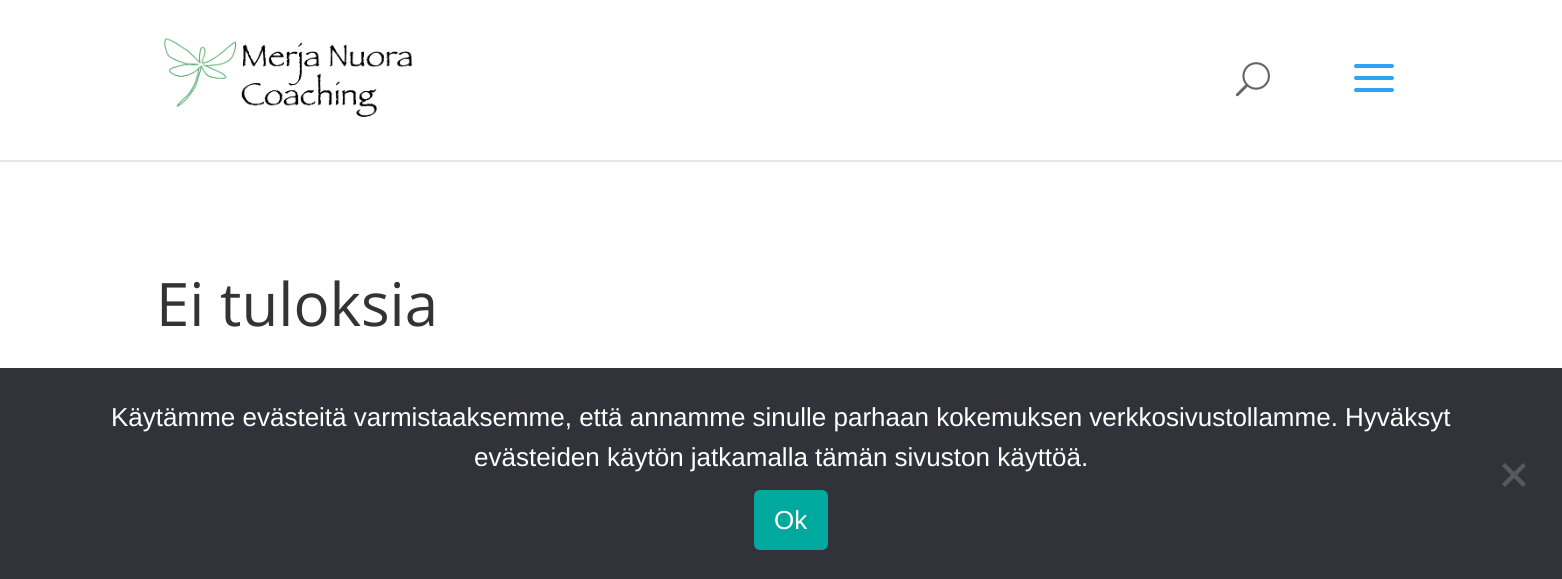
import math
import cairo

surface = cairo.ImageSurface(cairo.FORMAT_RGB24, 1562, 579)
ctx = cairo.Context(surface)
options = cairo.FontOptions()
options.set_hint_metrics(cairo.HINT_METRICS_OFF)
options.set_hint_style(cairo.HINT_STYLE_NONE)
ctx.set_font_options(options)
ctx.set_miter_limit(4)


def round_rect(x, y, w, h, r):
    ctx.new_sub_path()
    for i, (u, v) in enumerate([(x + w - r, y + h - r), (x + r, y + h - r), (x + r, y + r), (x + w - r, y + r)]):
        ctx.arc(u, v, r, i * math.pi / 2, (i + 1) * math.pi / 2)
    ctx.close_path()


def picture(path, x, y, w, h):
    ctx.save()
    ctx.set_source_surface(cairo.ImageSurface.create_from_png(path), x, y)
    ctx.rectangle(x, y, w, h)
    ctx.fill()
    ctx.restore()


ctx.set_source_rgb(1, 1, 1)
ctx.paint()
ctx.set_source_rgb(0.902, 0.902, 0.902)
ctx.rectangle(0, 160, 1562, 2)
ctx.fill()
picture("img1.png", 164, 38, 249, 79)
picture("img2.png", 1235, 62, 35, 35)
picture("img3.png", 1354, 64, 40, 28)
ctx.select_font_face("Open Sans")
ctx.set_font_size(60)
ctx.set_source_rgb(0.2, 0.2, 0.2)
ctx.move_to(156, 326)
ctx.show_text("Ei tuloksia")
ctx.set_source_rgb(0.196, 0.196, 0.227)
ctx.rectangle(0, 368, 1562, 211)
ctx.fill()
ctx.select_font_face("Liberation Sans")
ctx.set_font_size(26)
ctx.set_source_rgb(1, 1, 1)
ctx.move_to(111, 426)
ctx.show_text("Käytämme evästeitä varmistaaksemme, että annamme sinulle parhaan kokemuksen verkkosivustollamme. Hyväksyt")
ctx.move_to(474, 466)
ctx.show_text("evästeiden käytön jatkamalla tämän sivuston käyttöä.")
ctx.set_source_rgb(0.349, 0.349, 0.365)
ctx.new_path()
ctx.move_to(1523, 463)
ctx.line_to(1526, 466)
ctx.line_to(1505, 487)
ctx.line_to(1502, 484)
ctx.close_path()
ctx.fill()
ctx.new_path()
ctx.move_to(1502, 466)
ctx.line_to(1505, 463)
ctx.line_to(1526, 484)
ctx.line_to(1523, 487)
ctx.close_path()
ctx.fill()
ctx.set_source_rgb(0, 0.663, 0.616)
round_rect(754, 490, 74, 60, 6)
ctx.fill()
ctx.set_source_rgb(1, 1, 1)
ctx.move_to(774, 529)
ctx.show_text("Ok")
surface.write_to_png("page.png")
